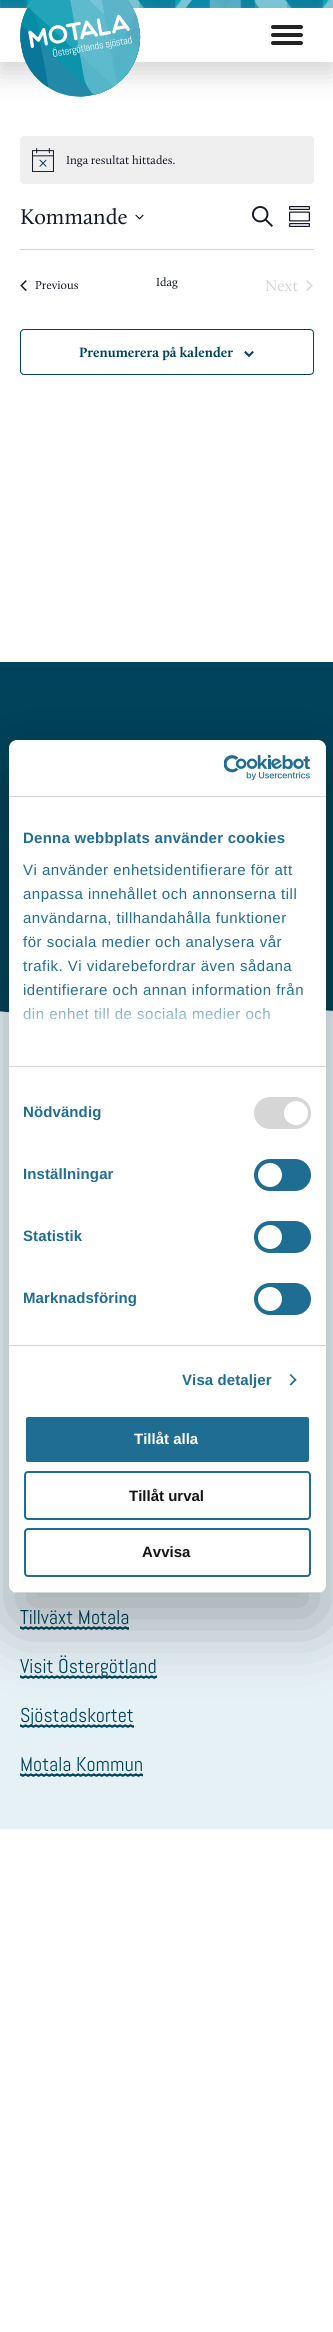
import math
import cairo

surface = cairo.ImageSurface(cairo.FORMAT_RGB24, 333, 2332)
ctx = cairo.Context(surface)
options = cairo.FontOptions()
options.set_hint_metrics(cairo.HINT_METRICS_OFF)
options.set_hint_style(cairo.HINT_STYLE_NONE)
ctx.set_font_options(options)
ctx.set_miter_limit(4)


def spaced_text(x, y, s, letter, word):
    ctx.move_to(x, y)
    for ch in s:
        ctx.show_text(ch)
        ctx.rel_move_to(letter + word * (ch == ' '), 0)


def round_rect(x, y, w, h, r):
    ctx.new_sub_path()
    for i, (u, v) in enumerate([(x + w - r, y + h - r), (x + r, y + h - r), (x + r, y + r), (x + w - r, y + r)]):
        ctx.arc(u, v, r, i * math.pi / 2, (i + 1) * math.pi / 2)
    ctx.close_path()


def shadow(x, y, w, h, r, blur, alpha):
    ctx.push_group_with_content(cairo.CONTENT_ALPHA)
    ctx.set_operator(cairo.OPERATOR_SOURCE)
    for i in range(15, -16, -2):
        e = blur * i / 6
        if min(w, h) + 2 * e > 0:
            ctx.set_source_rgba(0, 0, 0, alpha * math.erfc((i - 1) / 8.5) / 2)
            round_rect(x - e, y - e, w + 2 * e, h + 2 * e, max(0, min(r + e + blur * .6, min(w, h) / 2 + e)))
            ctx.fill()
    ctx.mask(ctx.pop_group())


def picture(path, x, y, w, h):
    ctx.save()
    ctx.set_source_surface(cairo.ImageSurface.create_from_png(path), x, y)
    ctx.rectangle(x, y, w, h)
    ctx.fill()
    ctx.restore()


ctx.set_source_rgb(1, 1, 1)
ctx.paint()
picture("img1.png", 0, 0, 333, 8)
ctx.save()
ctx.set_fill_rule(cairo.FILL_RULE_EVEN_ODD)
ctx.new_path()
ctx.move_to(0, 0)
ctx.line_to(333, 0)
ctx.line_to(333, 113)
ctx.line_to(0, 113)
ctx.close_path()
ctx.move_to(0, 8)
ctx.line_to(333, 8)
ctx.line_to(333, 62)
ctx.line_to(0, 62)
ctx.close_path()
ctx.clip()
ctx.set_source_rgb(0.659, 0.659, 0.659)
shadow(-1, 17, 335, 56, 0, 13, 0.5)
ctx.restore()
picture("img2.png", 20, 0, 121, 97)
ctx.set_source_rgb(0.133, 0.133, 0.133)
round_rect(271, 25, 32, 4, 2)
ctx.fill()
round_rect(271, 33, 32, 4, 2)
ctx.fill()
round_rect(271, 41, 32, 4, 2)
ctx.fill()
ctx.set_source_rgb(0.937, 0.937, 0.941)
round_rect(20, 136, 294, 48, 4)
ctx.fill()
picture("img3.png", 32, 148, 22, 24)
ctx.select_font_face("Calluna")
ctx.set_font_size(12)
ctx.set_source_rgb(0.078, 0.094, 0.153)
ctx.move_to(66, 164)
ctx.show_text("Inga resultat hittades.")
ctx.set_font_size(22)
ctx.move_to(20, 224)
ctx.show_text("Kommande")
picture("img4.png", 135, 214, 9, 6)
picture("img5.png", 252, 206, 21, 21)
picture("img6.png", 289, 206, 21, 21)
ctx.set_source_rgb(0.835, 0.835, 0.835)
ctx.rectangle(20, 249, 294, 1)
ctx.fill()
picture("img7.png", 20, 280, 7, 11)
ctx.set_font_size(12)
ctx.set_source_rgb(0.078, 0.094, 0.153)
ctx.move_to(35, 289)
ctx.show_text("Previous")
ctx.move_to(156, 286)
ctx.show_text("Idag")
ctx.set_font_size(16)
ctx.set_source_rgb(0.835, 0.835, 0.835)
ctx.move_to(265, 291)
ctx.show_text("Next")
picture("img8.png", 306, 280, 7, 11)
round_rect(20.5, 329.5, 293, 45, 3.5)
ctx.set_source_rgb(0, 0.263, 0.353)
ctx.set_line_width(1)
ctx.stroke()
ctx.select_font_face("Calluna", cairo.FONT_SLANT_NORMAL, cairo.FONT_WEIGHT_BOLD)
ctx.set_font_size(14)
ctx.move_to(79, 357)
ctx.show_text("Prenumerera på kalender")
picture("img9.png", 244, 351, 10, 6)
ctx.rectangle(0, 662, 333, 344)
ctx.fill()
ctx.set_source_rgb(0.902, 0.945, 0.961)
ctx.rectangle(0, 1010, 333, 819)
ctx.fill()
picture("img10.png", 0, 1006, 333, 7)
picture("img11.png", 20, 1626, 109, 4)
ctx.select_font_face("Abel")
ctx.set_font_size(20)
ctx.set_source_rgb(0, 0.263, 0.353)
ctx.move_to(20, 1624)
ctx.show_text("Tillväxt Motala")
picture("img12.png", 20, 1675, 137, 4)
ctx.move_to(20, 1673)
ctx.show_text("Visit Östergötland")
picture("img13.png", 20, 1724, 114, 4)
ctx.move_to(20, 1722)
ctx.show_text("Sjöstadskortet")
picture("img14.png", 20, 1773, 123, 4)
ctx.move_to(20, 1771)
ctx.show_text("Motala Kommun")
ctx.set_source_rgb(0, 0, 0)
shadow(9, 772, 317, 853, 8, 34, 0.3)
ctx.set_source_rgb(1, 1, 1)
round_rect(9, 740, 317, 853, 8)
ctx.fill()
ctx.set_source_rgb(0.839, 0.839, 0.839)
ctx.rectangle(9, 796, 317, 1)
ctx.fill()
picture("img15.png", 224, 755, 87, 26)
ctx.rectangle(9, 1066, 317, 1)
ctx.fill()
ctx.select_font_face("Liberation Sans", cairo.FONT_SLANT_NORMAL, cairo.FONT_WEIGHT_BOLD)
ctx.set_font_size(15)
ctx.set_source_rgb(0.125, 0.427, 0.576)
spaced_text(23, 843, "Denna webbplats använder cookies", 0.25, 0)
ctx.select_font_face("Liberation Sans")
spaced_text(23, 875, "Vi använder enhetsidentifierare för att", 0.5, 0)
spaced_text(23, 899, "anpassa innehållet och annonserna till", 0.5, 0)
spaced_text(23, 923, "användarna, tillhandahålla funktioner", 0.5, 0)
spaced_text(23, 947, "för sociala medier och analysera vår", 0.5, 0)
spaced_text(23, 971, "trafik. Vi vidarebefordrar även sådana", 0.5, 0)
spaced_text(23, 995, "identifierare och annan information från", 0.5, 0)
spaced_text(23, 1019, "din enhet till de sociala medier och", 0.5, 0)
gradient = cairo.LinearGradient(161, 1066, 161, 991)
gradient.add_color_stop_rgba(0, 1, 1, 1, 1)
gradient.add_color_stop_rgba(0.5, 1, 1, 1, 0.8)
gradient.add_color_stop_rgba(1, 1, 1, 1, 0)
ctx.set_source(gradient)
ctx.rectangle(23, 992, 280, 28)
ctx.fill()
ctx.set_source_rgb(0.839, 0.839, 0.839)
ctx.rectangle(9, 1345, 317, 1)
ctx.fill()
ctx.select_font_face("Liberation Sans", cairo.FONT_SLANT_NORMAL, cairo.FONT_WEIGHT_BOLD)
ctx.set_source_rgb(0.125, 0.427, 0.576)
spaced_text(23, 1117, "Nödvändig", 0.1, 0)
ctx.set_source_rgb(0.839, 0.839, 0.839)
round_rect(254, 1097, 57, 32, 16)
ctx.fill()
ctx.set_source_rgb(1, 1, 1)
ctx.arc(296, 1113, 12, 0, 2 * math.pi)
ctx.fill()
ctx.set_source_rgb(0.125, 0.427, 0.576)
spaced_text(23, 1179, "Inställningar", 0.1, 0)
round_rect(254, 1159, 57, 32, 16)
ctx.fill()
ctx.set_source_rgb(1, 1, 1)
ctx.arc(270, 1175, 12, 0, 2 * math.pi)
ctx.fill()
ctx.set_source_rgb(0.125, 0.427, 0.576)
spaced_text(23, 1241, "Statistik", 0.1, 0)
round_rect(254, 1221, 57, 32, 16)
ctx.fill()
ctx.set_source_rgb(1, 1, 1)
ctx.arc(270, 1237, 12, 0, 2 * math.pi)
ctx.fill()
ctx.set_source_rgb(0.125, 0.427, 0.576)
spaced_text(23, 1303, "Marknadsföring", 0.1, 0)
round_rect(254, 1283, 57, 32, 16)
ctx.fill()
ctx.set_source_rgb(1, 1, 1)
ctx.arc(270, 1299, 12, 0, 2 * math.pi)
ctx.fill()
ctx.set_source_rgb(0.125, 0.427, 0.576)
spaced_text(182, 1385, "Visa detaljer", 0.1, 0)
ctx.new_path()
ctx.move_to(291, 1374)
ctx.line_to(296.5, 1380)
ctx.line_to(295.5, 1381)
ctx.line_to(289.5, 1375)
ctx.close_path()
ctx.fill()
ctx.new_path()
ctx.move_to(295.5, 1378.5)
ctx.line_to(296.5, 1380)
ctx.line_to(291, 1385.5)
ctx.line_to(289.5, 1384.5)
ctx.close_path()
ctx.fill()
ctx.save()
round_rect(9, 740, 317, 853, 8)
ctx.clip()
ctx.set_source_rgb(0.839, 0.839, 0.839)
ctx.rectangle(9, 1592, 317, 1)
ctx.fill()
ctx.restore()
round_rect(25, 1416, 285, 47, 3)
ctx.fill_preserve()
ctx.set_source_rgb(1, 1, 1)
ctx.set_line_width(2)
ctx.stroke()
ctx.move_to(134, 1444)
ctx.show_text("Tillåt alla")
round_rect(25, 1472, 285, 47, 3)
ctx.set_source_rgb(0.125, 0.427, 0.576)
ctx.stroke()
ctx.set_source_rgb(0.078, 0.078, 0.078)
ctx.move_to(129, 1501)
ctx.show_text("Tillåt urval")
round_rect(25, 1529, 285, 47, 3)
ctx.set_source_rgb(0.125, 0.427, 0.576)
ctx.stroke()
ctx.set_source_rgb(0.078, 0.078, 0.078)
ctx.move_to(142, 1557)
ctx.show_text("Avvisa")
surface.write_to_png("page.png")
